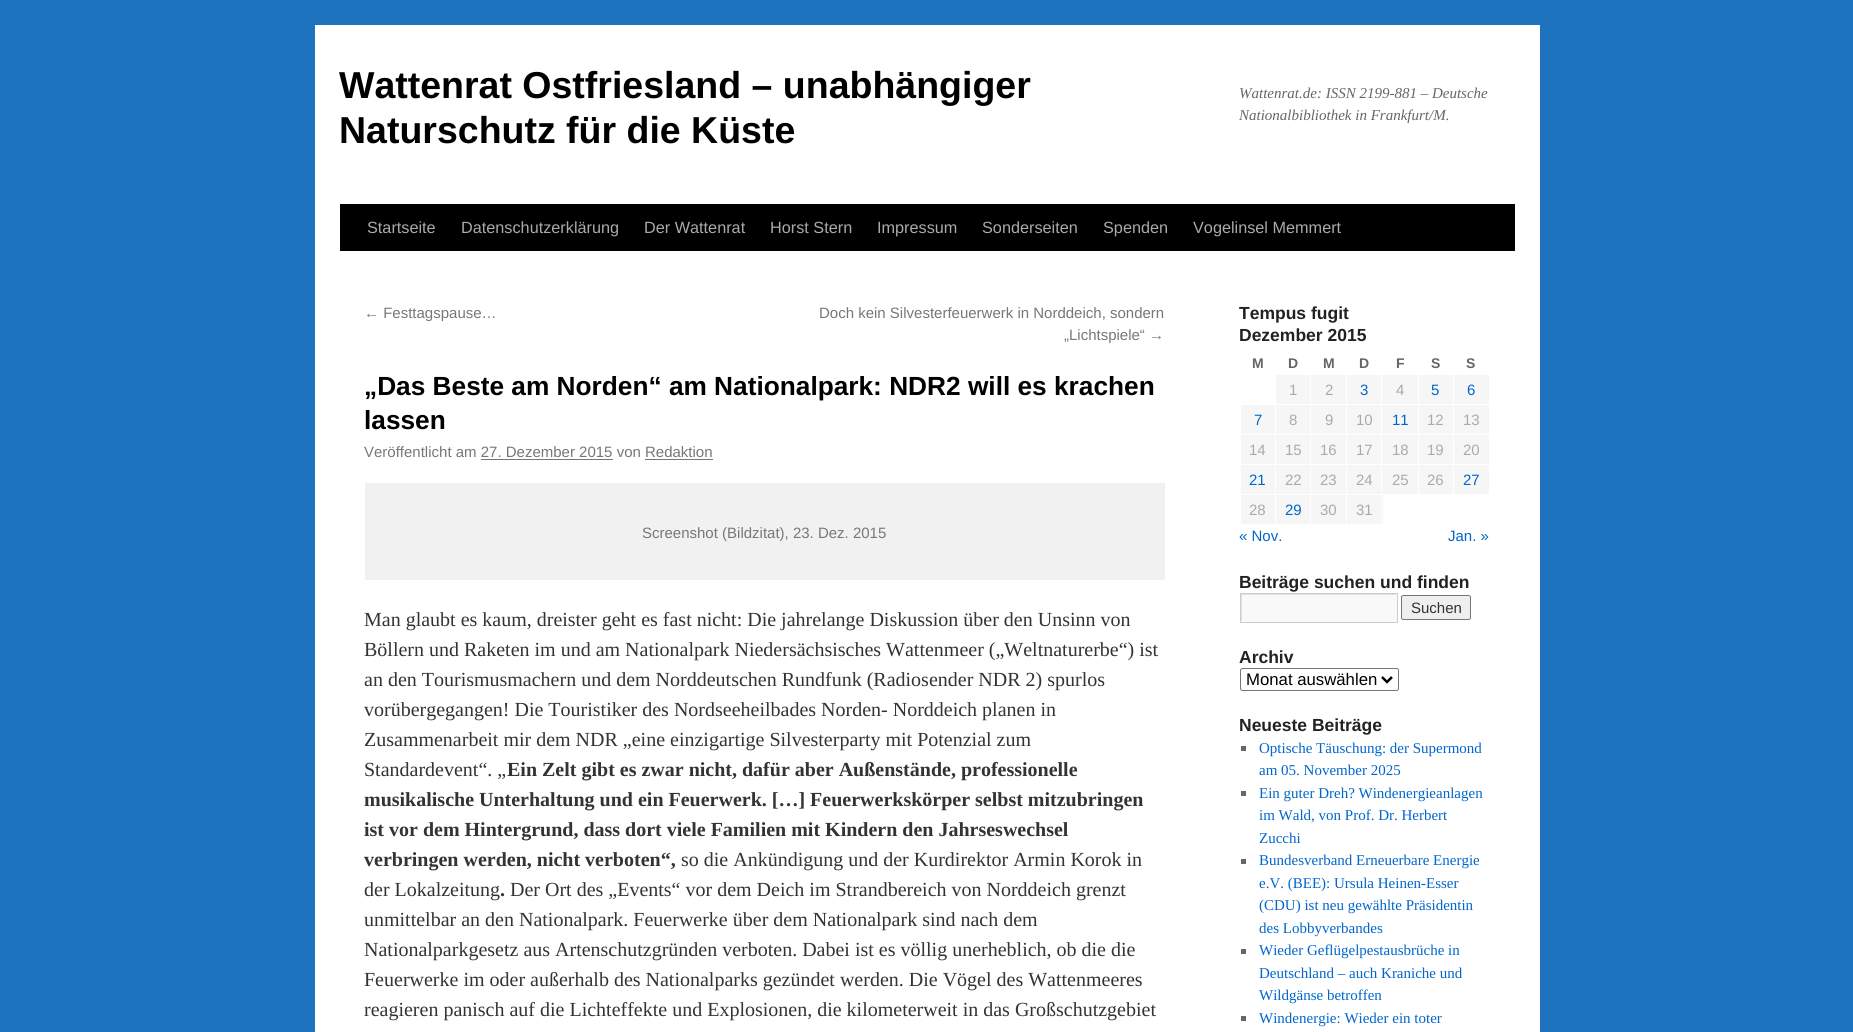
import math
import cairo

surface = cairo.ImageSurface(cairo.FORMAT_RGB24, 1853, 1032)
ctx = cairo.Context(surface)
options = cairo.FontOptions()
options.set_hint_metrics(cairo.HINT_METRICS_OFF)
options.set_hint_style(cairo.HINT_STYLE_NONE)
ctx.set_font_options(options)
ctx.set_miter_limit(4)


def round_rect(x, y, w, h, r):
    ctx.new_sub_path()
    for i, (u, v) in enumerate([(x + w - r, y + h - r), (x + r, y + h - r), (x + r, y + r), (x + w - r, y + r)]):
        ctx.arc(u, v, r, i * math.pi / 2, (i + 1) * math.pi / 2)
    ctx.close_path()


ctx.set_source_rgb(0.118, 0.451, 0.745)
ctx.paint()
ctx.set_source_rgb(1, 1, 1)
ctx.rectangle(315, 25, 1225, 1007)
ctx.fill()
ctx.select_font_face("Liberation Sans", cairo.FONT_SLANT_NORMAL, cairo.FONT_WEIGHT_BOLD)
ctx.set_font_size(37.5)
ctx.set_source_rgb(0, 0, 0)
ctx.move_to(339, 98)
ctx.show_text("Wattenrat Ostfriesland – unabhängiger")
ctx.move_to(339, 143)
ctx.show_text("Naturschutz für die Küste")
ctx.select_font_face("Liberation Serif", cairo.FONT_SLANT_ITALIC)
ctx.set_font_size(15)
ctx.set_source_rgb(0.4, 0.4, 0.4)
ctx.move_to(1239, 98)
ctx.show_text("Wattenrat.de: ISSN 2199-881 – Deutsche")
ctx.move_to(1239, 120)
ctx.show_text("Nationalbibliothek in Frankfurt/M.")
ctx.set_source_rgb(0, 0, 0)
ctx.rectangle(340, 204, 1175, 47)
ctx.fill()
ctx.select_font_face("Liberation Sans")
ctx.set_font_size(16.25)
ctx.set_source_rgb(0.667, 0.667, 0.667)
ctx.move_to(367, 233)
ctx.show_text("Startseite")
ctx.move_to(461, 233)
ctx.show_text("Datenschutzerklärung")
ctx.move_to(644, 233)
ctx.show_text("Der Wattenrat")
ctx.move_to(770, 233)
ctx.show_text("Horst Stern")
ctx.move_to(877, 233)
ctx.show_text("Impressum")
ctx.move_to(982, 233)
ctx.show_text("Sonderseiten")
ctx.move_to(1103, 233)
ctx.show_text("Spenden")
ctx.move_to(1193, 233)
ctx.show_text("Vogelinsel Memmert")
ctx.set_font_size(15)
ctx.set_source_rgb(0.467, 0.467, 0.467)
ctx.move_to(364, 318)
ctx.show_text("← Festtagspause…")
ctx.move_to(819, 318)
ctx.show_text("Doch kein Silvesterfeuerwerk in Norddeich, sondern")
ctx.move_to(1064, 340)
ctx.show_text("„Lichtspiele“ →")
ctx.select_font_face("Liberation Sans", cairo.FONT_SLANT_NORMAL, cairo.FONT_WEIGHT_BOLD)
ctx.set_font_size(26.25)
ctx.set_source_rgb(0, 0, 0)
ctx.move_to(364, 395)
ctx.show_text("„Das Beste am Norden“ am Nationalpark: NDR2 will es krachen")
ctx.move_to(364, 429)
ctx.show_text("lassen")
ctx.select_font_face("Liberation Sans")
ctx.set_font_size(15)
ctx.set_source_rgb(0.467, 0.467, 0.467)
ctx.move_to(364, 457)
ctx.show_text("Veröffentlicht am 27. Dezember 2015 von Redaktion")
ctx.rectangle(481, 459, 132, 1)
ctx.fill()
ctx.rectangle(645, 459, 68, 1)
ctx.fill()
ctx.set_source_rgb(0.945, 0.945, 0.945)
ctx.rectangle(365, 483, 800, 97)
ctx.fill()
ctx.set_source_rgb(0.467, 0.467, 0.467)
ctx.move_to(642, 538)
ctx.show_text("Screenshot (Bildzitat), 23. Dez. 2015")
ctx.select_font_face("Liberation Serif")
ctx.set_font_size(20)
ctx.set_source_rgb(0.2, 0.2, 0.2)
ctx.move_to(364, 626)
ctx.show_text("Man glaubt es kaum, dreister geht es fast nicht: Die jahrelange Diskussion über den Unsinn von")
ctx.move_to(364, 656)
ctx.show_text("Böllern und Raketen im und am Nationalpark Niedersächsisches Wattenmeer („Weltnaturerbe“) ist")
ctx.move_to(364, 686)
ctx.show_text("an den Tourismusmachern und dem Norddeutschen Rundfunk (Radiosender NDR 2) spurlos")
ctx.move_to(364, 716)
ctx.show_text("vorübergegangen! Die Touristiker des Nordseeheilbades Norden- Norddeich planen in")
ctx.move_to(364, 746)
ctx.show_text("Zusammenarbeit mir dem NDR „eine einzigartige Silvesterparty mit Potenzial zum")
ctx.move_to(364, 776)
ctx.show_text("Standardevent“. „")
ctx.select_font_face("Liberation Serif", cairo.FONT_SLANT_NORMAL, cairo.FONT_WEIGHT_BOLD)
ctx.move_to(507, 776)
ctx.show_text("Ein Zelt gibt es zwar nicht, dafür aber Außenstände, professionelle")
ctx.move_to(364, 806)
ctx.show_text("musikalische Unterhaltung und ein Feuerwerk. […] Feuerwerkskörper selbst mitzubringen")
ctx.move_to(364, 836)
ctx.show_text("ist vor dem Hintergrund, dass dort viele Familien mit Kindern den Jahrseswechsel")
ctx.move_to(364, 866)
ctx.show_text("verbringen werden, nicht verboten“,")
ctx.select_font_face("Liberation Serif")
ctx.move_to(681, 866)
ctx.show_text("so die Ankündigung und der Kurdirektor Armin Korok in")
ctx.move_to(364, 896)
ctx.show_text("der Lokalzeitung")
ctx.select_font_face("Liberation Serif", cairo.FONT_SLANT_NORMAL, cairo.FONT_WEIGHT_BOLD)
ctx.move_to(500, 896)
ctx.show_text(".")
ctx.select_font_face("Liberation Serif")
ctx.move_to(510, 896)
ctx.show_text("Der Ort des „Events“ vor dem Deich im Strandbereich von Norddeich grenzt")
ctx.move_to(364, 926)
ctx.show_text("unmittelbar an den Nationalpark. Feuerwerke über dem Nationalpark sind nach dem")
ctx.move_to(364, 956)
ctx.show_text("Nationalparkgesetz aus Artenschutzgründen verboten. Dabei ist es völlig unerheblich, ob die die")
ctx.move_to(364, 986)
ctx.show_text("Feuerwerke im oder außerhalb des Nationalparks gezündet werden. Die Vögel des Wattenmeeres")
ctx.move_to(364, 1016)
ctx.show_text("reagieren panisch auf die Lichteffekte und Explosionen, die kilometerweit in das Großschutzgebiet")
ctx.select_font_face("Liberation Sans", cairo.FONT_SLANT_NORMAL, cairo.FONT_WEIGHT_BOLD)
ctx.set_font_size(17.5)
ctx.set_source_rgb(0.133, 0.133, 0.133)
ctx.move_to(1239, 319)
ctx.show_text("Tempus fugit")
ctx.move_to(1239, 341)
ctx.show_text("Dezember 2015")
ctx.set_font_size(14)
ctx.set_source_rgb(0.4, 0.4, 0.4)
ctx.move_to(1252, 368)
ctx.show_text("M")
ctx.move_to(1288, 368)
ctx.show_text("D")
ctx.move_to(1323, 368)
ctx.show_text("M")
ctx.move_to(1359, 368)
ctx.show_text("D")
ctx.move_to(1396, 368)
ctx.show_text("F")
ctx.move_to(1431, 368)
ctx.show_text("S")
ctx.move_to(1466, 368)
ctx.show_text("S")
ctx.set_source_rgb(0.961, 0.961, 0.961)
ctx.rectangle(1276, 375, 34, 29)
ctx.fill()
ctx.select_font_face("Liberation Sans")
ctx.set_font_size(15)
ctx.set_source_rgb(0.667, 0.667, 0.667)
ctx.move_to(1289, 395)
ctx.show_text("1")
ctx.set_source_rgb(0.961, 0.961, 0.961)
ctx.rectangle(1311, 375, 35, 29)
ctx.fill()
ctx.set_source_rgb(0.667, 0.667, 0.667)
ctx.move_to(1325, 395)
ctx.show_text("2")
ctx.set_source_rgb(0.961, 0.961, 0.961)
ctx.rectangle(1347, 375, 71, 29)
ctx.fill()
ctx.set_source_rgb(0, 0.4, 0.8)
ctx.move_to(1360, 395)
ctx.show_text("3")
ctx.set_source_rgb(0.667, 0.667, 0.667)
ctx.move_to(1396, 395)
ctx.show_text("4")
ctx.set_source_rgb(0.961, 0.961, 0.961)
ctx.rectangle(1419, 375, 34, 29)
ctx.fill()
ctx.set_source_rgb(0, 0.4, 0.8)
ctx.move_to(1431, 395)
ctx.show_text("5")
ctx.set_source_rgb(0.961, 0.961, 0.961)
ctx.rectangle(1454, 375, 35, 29)
ctx.fill()
ctx.set_source_rgb(0, 0.4, 0.8)
ctx.move_to(1467, 395)
ctx.show_text("6")
ctx.set_source_rgb(0.961, 0.961, 0.961)
ctx.rectangle(1241, 405, 34, 29)
ctx.fill()
ctx.set_source_rgb(0, 0.4, 0.8)
ctx.move_to(1254, 425)
ctx.show_text("7")
ctx.set_source_rgb(0.961, 0.961, 0.961)
ctx.rectangle(1276, 405, 34, 29)
ctx.fill()
ctx.set_source_rgb(0.667, 0.667, 0.667)
ctx.move_to(1289, 425)
ctx.show_text("8")
ctx.set_source_rgb(0.961, 0.961, 0.961)
ctx.rectangle(1311, 405, 35, 29)
ctx.fill()
ctx.set_source_rgb(0.667, 0.667, 0.667)
ctx.move_to(1325, 425)
ctx.show_text("9")
ctx.set_source_rgb(0.961, 0.961, 0.961)
ctx.rectangle(1347, 405, 71, 29)
ctx.fill()
ctx.set_source_rgb(0.667, 0.667, 0.667)
ctx.move_to(1356, 425)
ctx.show_text("10")
ctx.set_source_rgb(0, 0.4, 0.8)
ctx.move_to(1392, 425)
ctx.show_text("11")
ctx.set_source_rgb(0.961, 0.961, 0.961)
ctx.rectangle(1419, 405, 34, 29)
ctx.fill()
ctx.set_source_rgb(0.667, 0.667, 0.667)
ctx.move_to(1427, 425)
ctx.show_text("12")
ctx.set_source_rgb(0.961, 0.961, 0.961)
ctx.rectangle(1454, 405, 35, 29)
ctx.fill()
ctx.set_source_rgb(0.667, 0.667, 0.667)
ctx.move_to(1463, 425)
ctx.show_text("13")
ctx.set_source_rgb(0.961, 0.961, 0.961)
ctx.rectangle(1241, 435, 34, 29)
ctx.fill()
ctx.set_source_rgb(0.667, 0.667, 0.667)
ctx.move_to(1249, 455)
ctx.show_text("14")
ctx.set_source_rgb(0.961, 0.961, 0.961)
ctx.rectangle(1276, 435, 34, 29)
ctx.fill()
ctx.set_source_rgb(0.667, 0.667, 0.667)
ctx.move_to(1285, 455)
ctx.show_text("15")
ctx.set_source_rgb(0.961, 0.961, 0.961)
ctx.rectangle(1311, 435, 35, 29)
ctx.fill()
ctx.set_source_rgb(0.667, 0.667, 0.667)
ctx.move_to(1320, 455)
ctx.show_text("16")
ctx.set_source_rgb(0.961, 0.961, 0.961)
ctx.rectangle(1347, 435, 71, 29)
ctx.fill()
ctx.set_source_rgb(0.667, 0.667, 0.667)
ctx.move_to(1356, 455)
ctx.show_text("17")
ctx.move_to(1392, 455)
ctx.show_text("18")
ctx.set_source_rgb(0.961, 0.961, 0.961)
ctx.rectangle(1419, 435, 34, 29)
ctx.fill()
ctx.set_source_rgb(0.667, 0.667, 0.667)
ctx.move_to(1427, 455)
ctx.show_text("19")
ctx.set_source_rgb(0.961, 0.961, 0.961)
ctx.rectangle(1454, 435, 35, 29)
ctx.fill()
ctx.set_source_rgb(0.667, 0.667, 0.667)
ctx.move_to(1463, 455)
ctx.show_text("20")
ctx.set_source_rgb(0.961, 0.961, 0.961)
ctx.rectangle(1241, 465, 34, 29)
ctx.fill()
ctx.set_source_rgb(0, 0.4, 0.8)
ctx.move_to(1249, 485)
ctx.show_text("21")
ctx.set_source_rgb(0.961, 0.961, 0.961)
ctx.rectangle(1276, 465, 34, 29)
ctx.fill()
ctx.set_source_rgb(0.667, 0.667, 0.667)
ctx.move_to(1285, 485)
ctx.show_text("22")
ctx.set_source_rgb(0.961, 0.961, 0.961)
ctx.rectangle(1311, 465, 35, 29)
ctx.fill()
ctx.set_source_rgb(0.667, 0.667, 0.667)
ctx.move_to(1320, 485)
ctx.show_text("23")
ctx.set_source_rgb(0.961, 0.961, 0.961)
ctx.rectangle(1347, 465, 71, 29)
ctx.fill()
ctx.set_source_rgb(0.667, 0.667, 0.667)
ctx.move_to(1356, 485)
ctx.show_text("24")
ctx.move_to(1392, 485)
ctx.show_text("25")
ctx.set_source_rgb(0.961, 0.961, 0.961)
ctx.rectangle(1419, 465, 34, 29)
ctx.fill()
ctx.set_source_rgb(0.667, 0.667, 0.667)
ctx.move_to(1427, 485)
ctx.show_text("26")
ctx.set_source_rgb(0.961, 0.961, 0.961)
ctx.rectangle(1454, 465, 35, 29)
ctx.fill()
ctx.set_source_rgb(0, 0.4, 0.8)
ctx.move_to(1463, 485)
ctx.show_text("27")
ctx.set_source_rgb(0.961, 0.961, 0.961)
ctx.rectangle(1241, 495, 34, 29)
ctx.fill()
ctx.set_source_rgb(0.667, 0.667, 0.667)
ctx.move_to(1249, 515)
ctx.show_text("28")
ctx.set_source_rgb(0.961, 0.961, 0.961)
ctx.rectangle(1276, 495, 34, 29)
ctx.fill()
ctx.set_source_rgb(0, 0.4, 0.8)
ctx.move_to(1285, 515)
ctx.show_text("29")
ctx.set_source_rgb(0.961, 0.961, 0.961)
ctx.rectangle(1311, 495, 35, 29)
ctx.fill()
ctx.set_source_rgb(0.667, 0.667, 0.667)
ctx.move_to(1320, 515)
ctx.show_text("30")
ctx.set_source_rgb(0.961, 0.961, 0.961)
ctx.rectangle(1347, 495, 36, 29)
ctx.fill()
ctx.set_source_rgb(0.667, 0.667, 0.667)
ctx.move_to(1356, 515)
ctx.show_text("31")
ctx.set_source_rgb(1, 1, 1)
ctx.rectangle(1381, 374, 1, 151)
ctx.fill()
ctx.set_source_rgb(0, 0.4, 0.8)
ctx.move_to(1239, 541)
ctx.show_text("« Nov.")
ctx.move_to(1448, 541)
ctx.show_text("Jan. »")
ctx.select_font_face("Liberation Sans", cairo.FONT_SLANT_NORMAL, cairo.FONT_WEIGHT_BOLD)
ctx.set_font_size(17.5)
ctx.set_source_rgb(0.133, 0.133, 0.133)
ctx.move_to(1239, 588)
ctx.show_text("Beiträge suchen und finden")
ctx.set_source_rgb(0.976, 0.976, 0.976)
ctx.rectangle(1241, 594, 156, 28)
ctx.fill()
ctx.save()
ctx.rectangle(1241, 594, 155, 27)
ctx.clip()
ctx.set_source_rgb(0.878, 0.878, 0.878)
ctx.set_fill_rule(cairo.FILL_RULE_EVEN_ODD)
ctx.new_path()
ctx.move_to(1118, 470)
ctx.line_to(1520, 470)
ctx.line_to(1520, 745)
ctx.line_to(1118, 745)
ctx.close_path()
ctx.move_to(1242, 595)
ctx.line_to(1398, 595)
ctx.line_to(1398, 622)
ctx.line_to(1242, 622)
ctx.close_path()
ctx.fill()
ctx.restore()
ctx.rectangle(1240.5, 593.5, 157, 29)
ctx.set_source_rgb(0.8, 0.8, 0.8)
ctx.set_line_width(1)
ctx.stroke()
ctx.set_source_rgb(0.937, 0.937, 0.937)
round_rect(1401.5, 595.5, 69, 24, 2)
ctx.fill_preserve()
ctx.set_source_rgb(0.463, 0.463, 0.463)
ctx.stroke()
ctx.select_font_face("Liberation Sans")
ctx.set_font_size(15)
ctx.set_source_rgb(0.2, 0.2, 0.2)
ctx.move_to(1411, 613)
ctx.show_text("Suchen")
ctx.select_font_face("Liberation Sans", cairo.FONT_SLANT_NORMAL, cairo.FONT_WEIGHT_BOLD)
ctx.set_font_size(17.5)
ctx.set_source_rgb(0.133, 0.133, 0.133)
ctx.move_to(1239, 663)
ctx.show_text("Archiv")
round_rect(1240.5, 668.5, 158, 22, 2)
ctx.set_source_rgb(0.463, 0.463, 0.463)
ctx.stroke()
ctx.new_path()
ctx.move_to(1382, 677)
ctx.line_to(1387, 682)
ctx.line_to(1392, 677)
ctx.set_source_rgb(0, 0, 0)
ctx.set_line_width(2.5)
ctx.stroke()
ctx.select_font_face("Liberation Sans")
ctx.set_font_size(16.75)
ctx.move_to(1246, 685)
ctx.show_text("Monat auswählen")
ctx.select_font_face("Liberation Sans", cairo.FONT_SLANT_NORMAL, cairo.FONT_WEIGHT_BOLD)
ctx.set_font_size(17.5)
ctx.set_source_rgb(0.133, 0.133, 0.133)
ctx.move_to(1239, 731)
ctx.show_text("Neueste Beiträge")
ctx.set_source_rgb(0.4, 0.4, 0.4)
ctx.rectangle(1241, 746, 5, 5)
ctx.fill()
ctx.select_font_face("Liberation Serif")
ctx.set_font_size(15)
ctx.set_source_rgb(0, 0.4, 0.8)
ctx.move_to(1259, 753)
ctx.show_text("Optische Täuschung: der Supermond")
ctx.move_to(1259, 775)
ctx.show_text("am 05. November 2025")
ctx.set_source_rgb(0.4, 0.4, 0.4)
ctx.rectangle(1241, 791, 5, 5)
ctx.fill()
ctx.set_source_rgb(0, 0.4, 0.8)
ctx.move_to(1259, 798)
ctx.show_text("Ein guter Dreh? Windenergieanlagen")
ctx.move_to(1259, 820)
ctx.show_text("im Wald, von Prof. Dr. Herbert")
ctx.move_to(1259, 843)
ctx.show_text("Zucchi")
ctx.set_source_rgb(0.4, 0.4, 0.4)
ctx.rectangle(1241, 859, 5, 5)
ctx.fill()
ctx.set_source_rgb(0, 0.4, 0.8)
ctx.move_to(1259, 865)
ctx.show_text("Bundesverband Erneuerbare Energie")
ctx.move_to(1259, 888)
ctx.show_text("e.V. (BEE): Ursula Heinen-Esser")
ctx.move_to(1259, 910)
ctx.show_text("(CDU) ist neu gewählte Präsidentin")
ctx.move_to(1259, 933)
ctx.show_text("des Lobbyverbandes")
ctx.set_source_rgb(0.4, 0.4, 0.4)
ctx.rectangle(1241, 949, 5, 5)
ctx.fill()
ctx.set_source_rgb(0, 0.4, 0.8)
ctx.move_to(1259, 955)
ctx.show_text("Wieder Geflügelpestausbrüche in")
ctx.move_to(1259, 978)
ctx.show_text("Deutschland – auch Kraniche und")
ctx.move_to(1259, 1000)
ctx.show_text("Wildgänse betroffen")
ctx.set_source_rgb(0.4, 0.4, 0.4)
ctx.rectangle(1241, 1016, 5, 5)
ctx.fill()
ctx.set_source_rgb(0, 0.4, 0.8)
ctx.move_to(1259, 1023)
ctx.show_text("Windenergie: Wieder ein toter")
surface.write_to_png("page.png")
